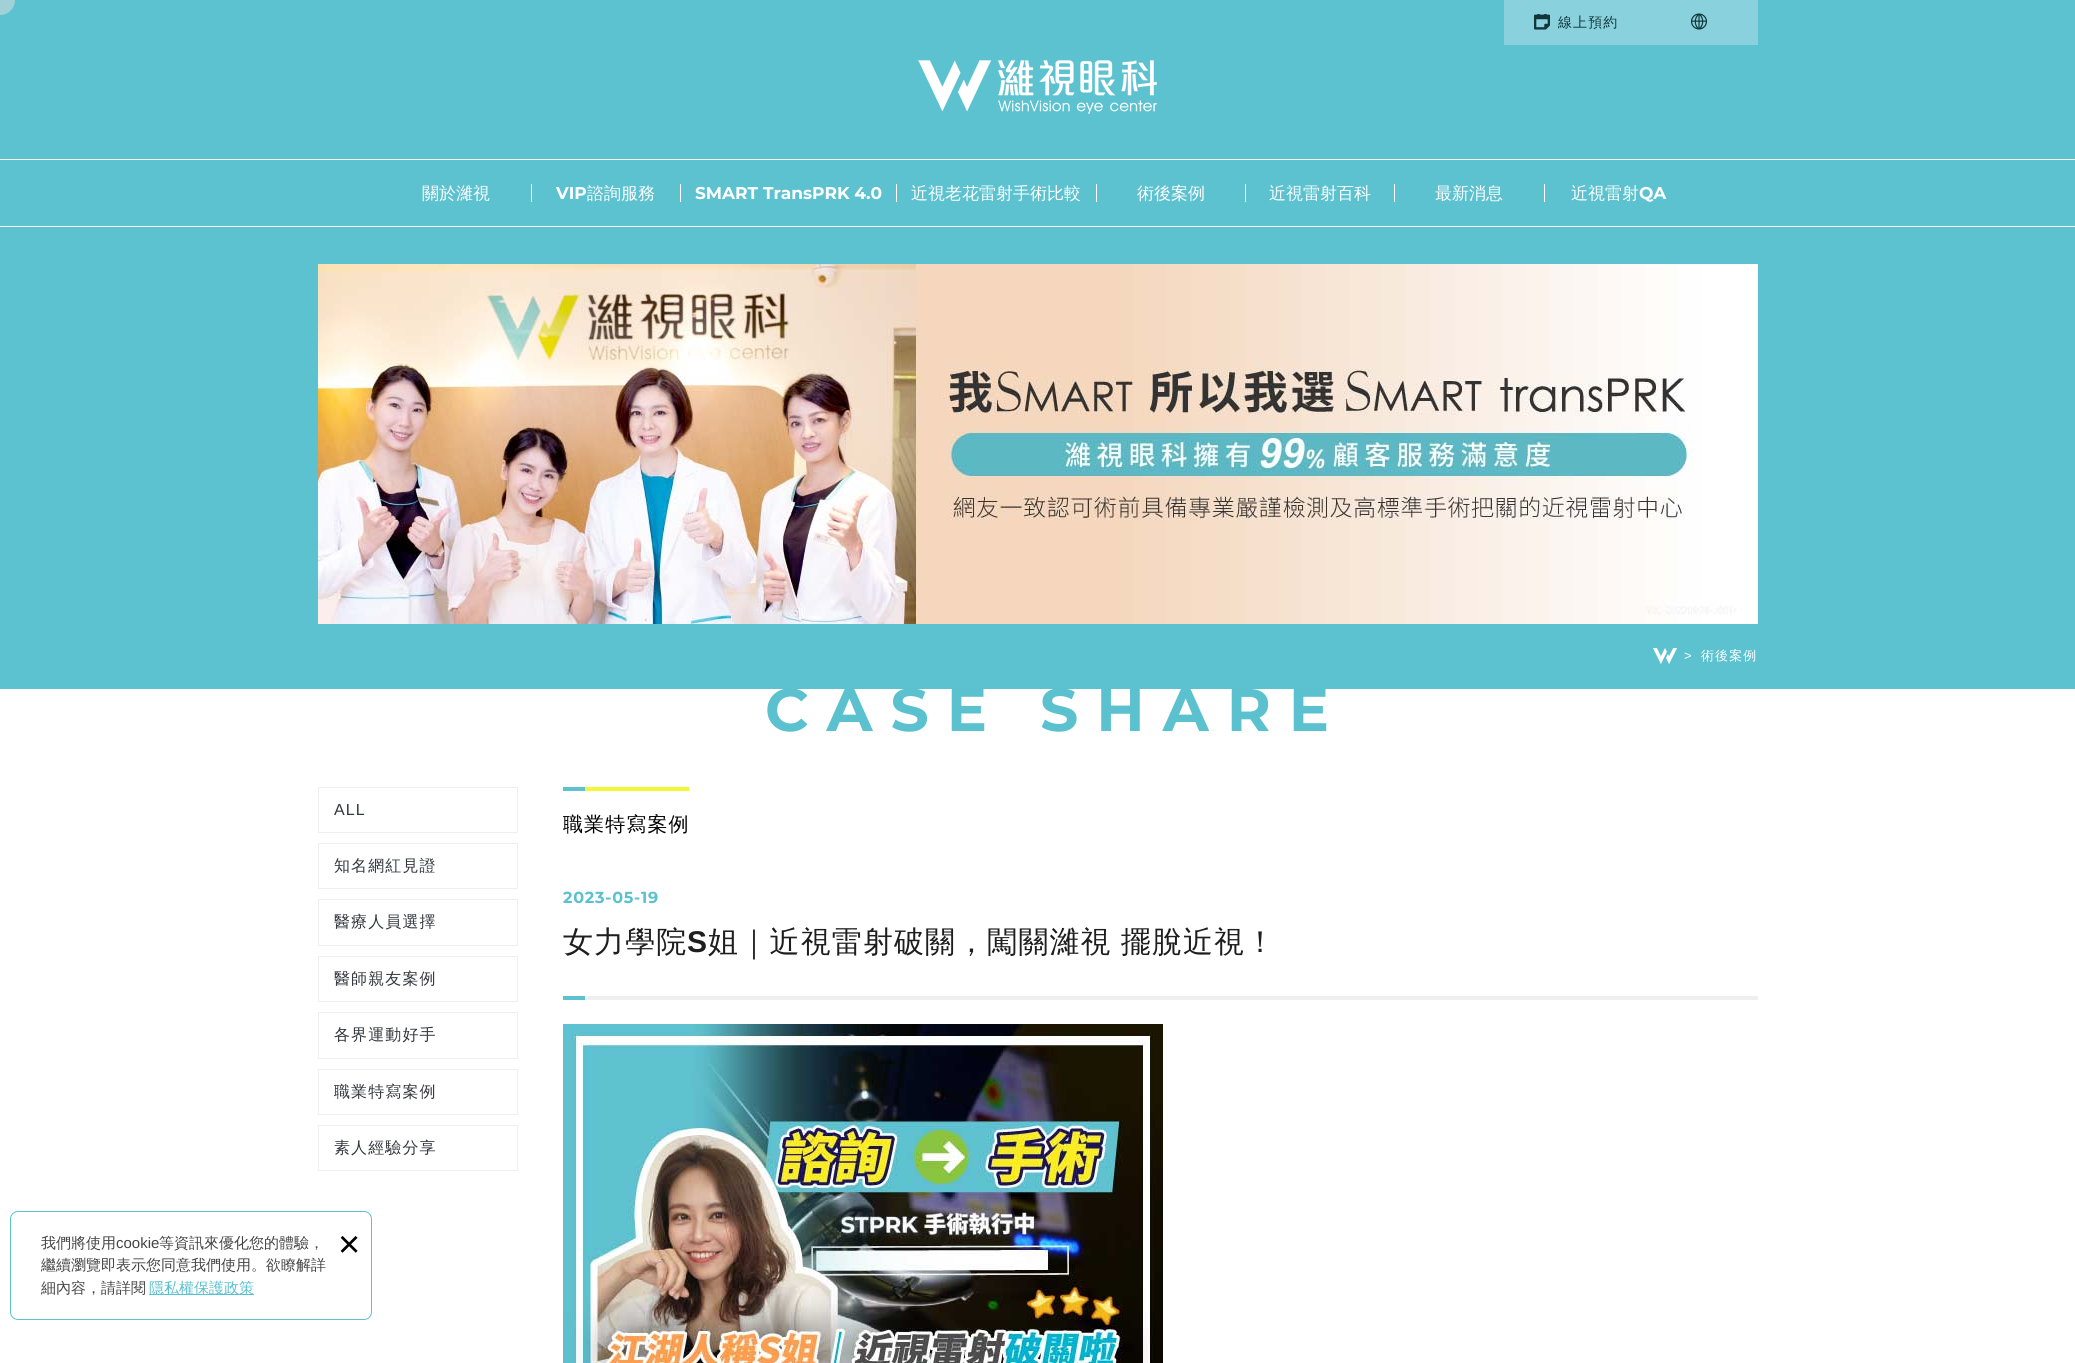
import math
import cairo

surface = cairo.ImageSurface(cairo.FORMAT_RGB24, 2075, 1363)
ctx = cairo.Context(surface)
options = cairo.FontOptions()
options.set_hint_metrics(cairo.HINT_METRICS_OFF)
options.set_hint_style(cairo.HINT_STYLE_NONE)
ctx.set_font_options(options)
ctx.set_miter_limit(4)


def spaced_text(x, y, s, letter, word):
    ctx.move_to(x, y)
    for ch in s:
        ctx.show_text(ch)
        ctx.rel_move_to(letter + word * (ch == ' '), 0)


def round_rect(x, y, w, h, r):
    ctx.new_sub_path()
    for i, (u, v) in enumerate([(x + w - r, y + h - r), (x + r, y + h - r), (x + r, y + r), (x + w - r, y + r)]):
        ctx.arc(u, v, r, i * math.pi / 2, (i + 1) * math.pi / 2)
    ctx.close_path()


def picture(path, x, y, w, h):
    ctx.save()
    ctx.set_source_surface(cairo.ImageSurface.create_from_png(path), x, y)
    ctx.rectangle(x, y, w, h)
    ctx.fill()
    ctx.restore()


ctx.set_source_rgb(1, 1, 1)
ctx.paint()
ctx.set_source_rgb(0.361, 0.761, 0.812)
ctx.rectangle(0, 0, 2075, 226)
ctx.fill()
ctx.set_source_rgb(0.553, 0.831, 0.867)
ctx.arc(0, 0, 15, 0, 2 * math.pi)
ctx.fill()
ctx.set_source_rgba(0.788, 0.788, 0.788, 0.3)
ctx.arc(0, 0, 15, 0, 2 * math.pi)
ctx.fill()
ctx.set_source_rgb(0.537, 0.82, 0.863)
ctx.rectangle(1504, 0, 254, 45)
ctx.fill()
picture("img1.png", 1534, 14, 16, 16)
ctx.select_font_face("WenQuanYi Zen Hei Medium")
ctx.set_font_size(14)
ctx.set_source_rgb(0.067, 0.212, 0.235)
spaced_text(1558, 27, "線上預約", 1.1, 0)
picture("img2.png", 1691, 13, 16, 17)
picture("img3.png", 918, 60, 239, 54)
ctx.set_source_rgb(1, 1, 1)
ctx.rectangle(0, 159, 2075, 1)
ctx.fill()
ctx.set_font_size(17)
ctx.move_to(422, 199)
ctx.show_text("關於濰視")
ctx.rectangle(531, 184, 1, 18)
ctx.fill()
ctx.select_font_face("Montserrat", cairo.FONT_SLANT_NORMAL, cairo.FONT_WEIGHT_BOLD)
ctx.move_to(556, 199)
ctx.show_text("VIP")
ctx.select_font_face("WenQuanYi Zen Hei Medium")
ctx.move_to(587, 199)
ctx.show_text("諮詢服務")
ctx.rectangle(680, 184, 1, 18)
ctx.fill()
ctx.select_font_face("Montserrat", cairo.FONT_SLANT_NORMAL, cairo.FONT_WEIGHT_BOLD)
ctx.move_to(695, 199)
ctx.show_text("SMART TransPRK 4.0")
ctx.rectangle(896, 184, 1, 18)
ctx.fill()
ctx.select_font_face("WenQuanYi Zen Hei Medium")
ctx.move_to(911, 199)
ctx.show_text("近視老花雷射手術比較")
ctx.rectangle(1096, 184, 1, 18)
ctx.fill()
ctx.move_to(1137, 199)
ctx.show_text("術後案例")
ctx.rectangle(1245, 184, 1, 18)
ctx.fill()
ctx.move_to(1269, 199)
ctx.show_text("近視雷射百科")
ctx.rectangle(1394, 184, 1, 18)
ctx.fill()
ctx.move_to(1435, 199)
ctx.show_text("最新消息")
ctx.rectangle(1544, 184, 1, 18)
ctx.fill()
ctx.move_to(1571, 199)
ctx.show_text("近視雷射")
ctx.select_font_face("Montserrat", cairo.FONT_SLANT_NORMAL, cairo.FONT_WEIGHT_BOLD)
ctx.move_to(1639, 199)
ctx.show_text("QA")
round_rect(10.5, 1211.5, 361, 108, 7.5)
ctx.set_source_rgb(0.361, 0.761, 0.812)
ctx.set_line_width(1)
ctx.stroke()
ctx.select_font_face("WenQuanYi Zen Hei Medium")
ctx.set_font_size(15)
ctx.set_source_rgb(0.267, 0.267, 0.267)
ctx.move_to(41, 1248)
ctx.show_text("我們將使用")
ctx.select_font_face("Liberation Sans")
ctx.move_to(116, 1248)
ctx.show_text("cookie")
ctx.select_font_face("WenQuanYi Zen Hei Medium")
ctx.move_to(159, 1248)
ctx.show_text("等資訊來優化您的體驗，")
ctx.move_to(41, 1270)
ctx.show_text("繼續瀏覽即表示您同意我們使用。欲瞭解詳")
ctx.move_to(41, 1293)
ctx.show_text("細內容，請詳閱")
ctx.set_source_rgb(0.361, 0.761, 0.812)
ctx.rectangle(149, 1294, 105, 1)
ctx.fill()
ctx.set_source_rgb(0.357, 0.757, 0.808)
ctx.move_to(149, 1293)
ctx.show_text("隱私權保護政策")
ctx.select_font_face("Liberation Sans")
ctx.set_font_size(38)
ctx.set_source_rgb(0, 0, 0)
ctx.move_to(338, 1257)
ctx.show_text("×")
ctx.set_source_rgb(0.361, 0.761, 0.812)
ctx.rectangle(0, 227, 2075, 462)
ctx.fill()
picture("img4.png", 318, 264, 1440, 360)
picture("img5.png", 1653, 648, 24, 16)
ctx.set_font_size(13)
ctx.set_source_rgb(1, 1, 1)
spaced_text(1684, 660, ">", 1.1, 0)
ctx.select_font_face("WenQuanYi Zen Hei Medium")
spaced_text(1701, 660, "術後案例", 1.1, 0)
ctx.select_font_face("Montserrat", cairo.FONT_SLANT_NORMAL, cairo.FONT_WEIGHT_BOLD)
ctx.set_font_size(60)
ctx.set_source_rgb(0.357, 0.757, 0.808)
spaced_text(765, 731, "CASE SHARE", 18, 0)
ctx.rectangle(318.5, 787.5, 199, 45)
ctx.set_source_rgb(0.937, 0.937, 0.937)
ctx.stroke()
ctx.select_font_face("Liberation Sans")
ctx.set_font_size(16)
ctx.set_source_rgb(0.2, 0.216, 0.243)
spaced_text(334, 815, "ALL", 1.1, 0)
ctx.rectangle(318.5, 843.5, 199, 45)
ctx.set_source_rgb(0.937, 0.937, 0.937)
ctx.stroke()
ctx.select_font_face("WenQuanYi Zen Hei Medium")
ctx.set_source_rgb(0.2, 0.216, 0.243)
spaced_text(334, 871, "知名網紅見證", 1.1, 0)
ctx.rectangle(318.5, 899.5, 199, 46)
ctx.set_source_rgb(0.937, 0.937, 0.937)
ctx.stroke()
ctx.set_source_rgb(0.2, 0.216, 0.243)
spaced_text(334, 927, "醫療人員選擇", 1.1, 0)
ctx.rectangle(318.5, 956.5, 199, 45)
ctx.set_source_rgb(0.937, 0.937, 0.937)
ctx.stroke()
ctx.set_source_rgb(0.2, 0.216, 0.243)
spaced_text(334, 984, "醫師親友案例", 1.1, 0)
ctx.rectangle(318.5, 1012.5, 199, 46)
ctx.set_source_rgb(0.937, 0.937, 0.937)
ctx.stroke()
ctx.set_source_rgb(0.2, 0.216, 0.243)
spaced_text(334, 1040, "各界運動好手", 1.1, 0)
ctx.rectangle(318.5, 1069.5, 199, 45)
ctx.set_source_rgb(0.937, 0.937, 0.937)
ctx.stroke()
ctx.set_source_rgb(0.2, 0.216, 0.243)
spaced_text(334, 1097, "職業特寫案例", 1.1, 0)
ctx.rectangle(318.5, 1125.5, 199, 45)
ctx.set_source_rgb(0.937, 0.937, 0.937)
ctx.stroke()
ctx.set_source_rgb(0.2, 0.216, 0.243)
spaced_text(334, 1153, "素人經驗分享", 1.1, 0)
ctx.set_source_rgb(0.953, 0.969, 0.212)
ctx.rectangle(585, 787, 104, 4)
ctx.fill()
ctx.set_source_rgb(0.361, 0.761, 0.816)
ctx.rectangle(563, 787, 22, 4)
ctx.fill()
ctx.set_font_size(20)
ctx.set_source_rgb(0, 0, 0)
spaced_text(563, 831, "職業特寫案例", 1.1, 0)
ctx.select_font_face("Montserrat", cairo.FONT_SLANT_NORMAL, cairo.FONT_WEIGHT_BOLD)
ctx.set_font_size(16)
ctx.set_source_rgb(0.357, 0.757, 0.808)
spaced_text(563, 903, "2023-05-19", 0.75, 0)
ctx.select_font_face("WenQuanYi Zen Hei Medium")
ctx.set_font_size(30)
ctx.set_source_rgb(0.118, 0.118, 0.118)
spaced_text(563, 952, "女力學院", 1.1, 0)
ctx.select_font_face("Liberation Sans", cairo.FONT_SLANT_NORMAL, cairo.FONT_WEIGHT_BOLD)
spaced_text(687, 952, "S", 1.1, 0)
ctx.select_font_face("WenQuanYi Zen Hei Medium")
spaced_text(708, 952, "姐｜近視雷射破關，闖關濰視 擺脫近視！", 1.1, -1)
ctx.set_source_rgb(0.937, 0.937, 0.937)
ctx.rectangle(585, 996, 1173, 4)
ctx.fill()
ctx.set_source_rgb(0.361, 0.761, 0.816)
ctx.rectangle(563, 996, 22, 4)
ctx.fill()
picture("img6.png", 563, 1024, 600, 339)
surface.write_to_png("page.png")
